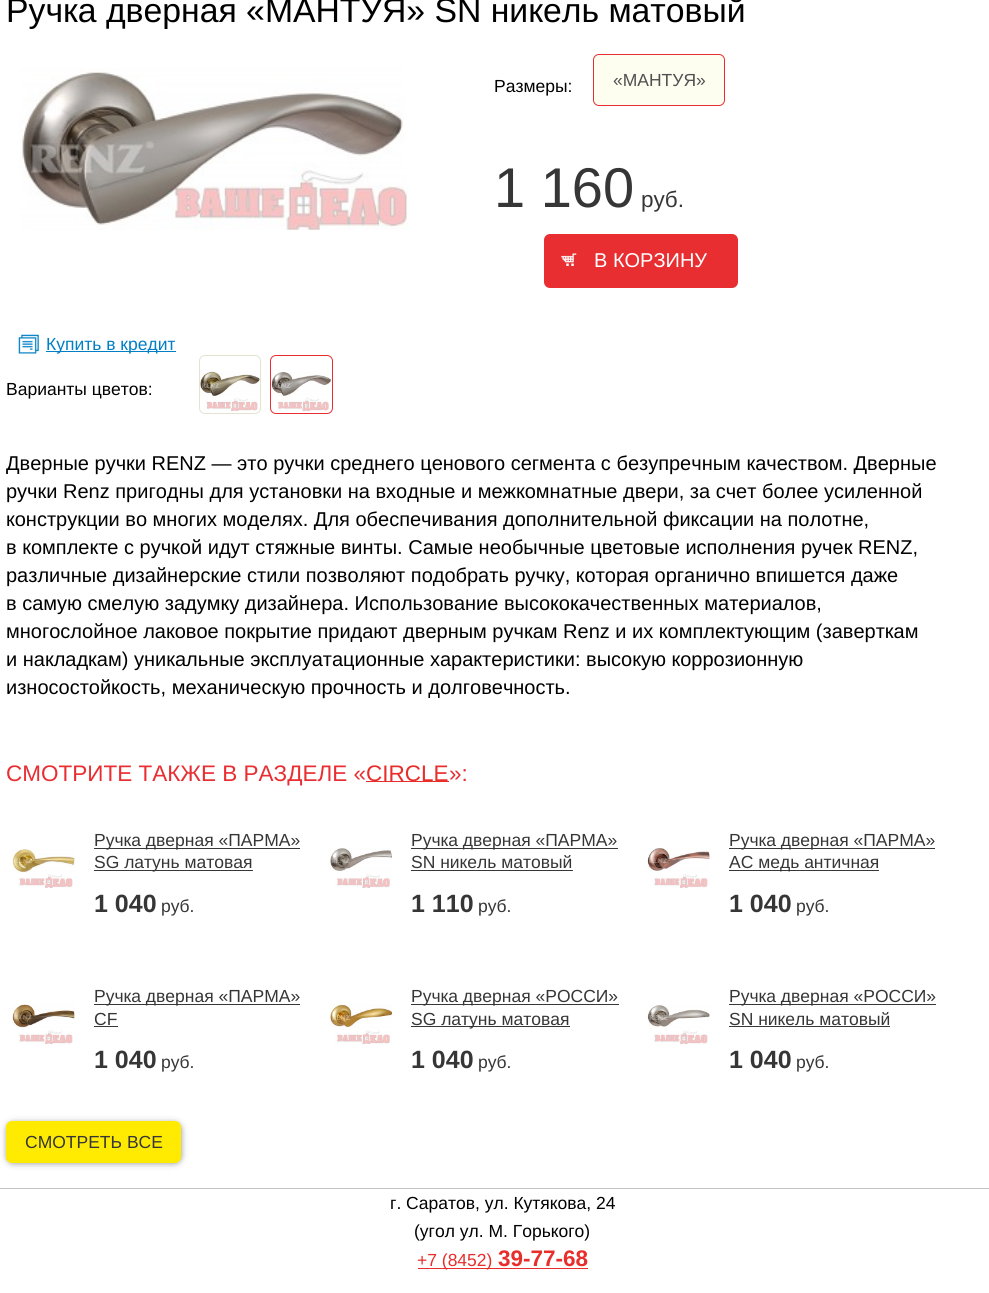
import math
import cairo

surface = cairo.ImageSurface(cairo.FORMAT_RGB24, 989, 1293)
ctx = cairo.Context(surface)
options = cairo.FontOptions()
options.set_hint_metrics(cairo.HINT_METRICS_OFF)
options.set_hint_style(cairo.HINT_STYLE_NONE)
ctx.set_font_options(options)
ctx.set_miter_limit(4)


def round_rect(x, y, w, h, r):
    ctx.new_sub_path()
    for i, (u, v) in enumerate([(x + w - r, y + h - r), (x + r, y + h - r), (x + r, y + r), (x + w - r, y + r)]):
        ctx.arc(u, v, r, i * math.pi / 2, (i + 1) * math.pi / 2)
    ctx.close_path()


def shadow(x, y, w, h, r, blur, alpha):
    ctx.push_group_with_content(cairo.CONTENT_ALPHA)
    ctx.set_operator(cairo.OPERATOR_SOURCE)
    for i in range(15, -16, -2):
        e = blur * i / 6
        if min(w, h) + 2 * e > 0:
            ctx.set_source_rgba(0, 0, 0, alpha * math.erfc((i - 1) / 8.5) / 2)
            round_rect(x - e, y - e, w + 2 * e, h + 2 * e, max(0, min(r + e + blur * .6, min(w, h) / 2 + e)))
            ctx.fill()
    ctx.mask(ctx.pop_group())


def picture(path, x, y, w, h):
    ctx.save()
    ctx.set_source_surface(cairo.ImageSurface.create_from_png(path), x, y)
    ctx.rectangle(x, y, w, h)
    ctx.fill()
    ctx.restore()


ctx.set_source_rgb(1, 1, 1)
ctx.paint()
ctx.select_font_face("Liberation Sans")
ctx.set_font_size(33.75)
ctx.set_source_rgb(0, 0, 0)
ctx.move_to(6, 22)
ctx.show_text("Ручка дверная «МАНТУЯ» SN никель матовый")
picture("img1.png", 19, 68, 391, 162)
ctx.set_font_size(17.5)
ctx.move_to(494, 92)
ctx.show_text("Размеры:")
ctx.set_source_rgb(0.992, 0.992, 0.941)
round_rect(593.5, 54.5, 131, 51, 5.5)
ctx.fill_preserve()
ctx.set_source_rgb(0.91, 0.18, 0.192)
ctx.set_line_width(1)
ctx.stroke()
ctx.set_source_rgb(0.314, 0.314, 0.314)
ctx.move_to(613, 86)
ctx.show_text("«МАНТУЯ»")
ctx.set_font_size(56)
ctx.set_source_rgb(0.212, 0.212, 0.212)
ctx.move_to(494, 207)
ctx.show_text("1 160")
ctx.set_font_size(22.5)
ctx.move_to(641, 207)
ctx.show_text("руб.")
ctx.set_source_rgb(0.914, 0.18, 0.196)
round_rect(544, 234, 194, 54, 6)
ctx.fill()
picture("img2.png", 561, 253, 16, 13)
ctx.set_font_size(20)
ctx.set_source_rgb(1, 1, 1)
ctx.move_to(594, 267)
ctx.show_text("В КОРЗИНУ")
picture("img3.png", 18, 334, 21, 20)
ctx.set_source_rgb(0, 0.498, 0.769)
ctx.rectangle(46, 351, 130, 1)
ctx.fill()
ctx.set_font_size(17.5)
ctx.move_to(46, 350)
ctx.show_text("Купить в кредит")
ctx.set_source_rgb(0, 0, 0)
ctx.move_to(6, 395)
ctx.show_text("Варианты цветов:")
picture("img4.png", 200, 371, 60, 41)
round_rect(199.5, 355.5, 61, 58, 5.5)
ctx.set_source_rgb(0.894, 0.89, 0.82)
ctx.stroke()
picture("img5.png", 271, 372, 60, 40)
round_rect(270.5, 355.5, 62, 58, 5.5)
ctx.set_source_rgb(0.91, 0.18, 0.192)
ctx.stroke()
ctx.set_font_size(20)
ctx.set_source_rgb(0, 0, 0)
ctx.move_to(6, 470)
ctx.show_text("Дверные ручки RENZ — это ручки среднего ценового сегмента с безупречным качеством. Дверные")
ctx.move_to(6, 498)
ctx.show_text("ручки Renz пригодны для установки на входные и межкомнатные двери, за счет более усиленной")
ctx.move_to(6, 526)
ctx.show_text("конструкции во многих моделях. Для обеспечивания дополнительной фиксации на полотне,")
ctx.move_to(6, 554)
ctx.show_text("в комплекте с ручкой идут стяжные винты. Самые необычные цветовые исполнения ручек RENZ,")
ctx.move_to(6, 582)
ctx.show_text("различные дизайнерские стили позволяют подобрать ручку, которая органично впишется даже")
ctx.move_to(6, 610)
ctx.show_text("в самую смелую задумку дизайнера. Использование высококачественных материалов,")
ctx.move_to(6, 638)
ctx.show_text("многослойное лаковое покрытие придают дверным ручкам Renz и их комплектующим (заверткам")
ctx.move_to(6, 666)
ctx.show_text("и накладкам) уникальные эксплуатационные характеристики: высокую коррозионную")
ctx.move_to(6, 694)
ctx.show_text("износостойкость, механическую прочность и долговечность.")
ctx.set_font_size(22.5)
ctx.set_source_rgb(0.914, 0.18, 0.196)
ctx.move_to(6, 781)
ctx.show_text("СМОТРИТЕ ТАКЖЕ В РАЗДЕЛЕ «")
ctx.set_source_rgb(0.906, 0.18, 0.169)
ctx.rectangle(366, 781, 83, 1)
ctx.fill()
ctx.move_to(366, 781)
ctx.show_text("CIRCLE")
ctx.set_source_rgb(0.914, 0.18, 0.196)
ctx.move_to(449, 781)
ctx.show_text("»:")
picture("img6.png", 12, 849, 63, 40)
ctx.set_source_rgb(0.216, 0.216, 0.216)
ctx.rectangle(94, 848, 206, 1)
ctx.fill()
ctx.set_font_size(17.5)
ctx.set_source_rgb(0.212, 0.212, 0.212)
ctx.move_to(94, 846)
ctx.show_text("Ручка дверная «ПАРМА»")
ctx.set_source_rgb(0.216, 0.216, 0.216)
ctx.rectangle(94, 870, 159, 1)
ctx.fill()
ctx.set_source_rgb(0.212, 0.212, 0.212)
ctx.move_to(94, 868)
ctx.show_text("SG латунь матовая")
ctx.select_font_face("Liberation Sans", cairo.FONT_SLANT_NORMAL, cairo.FONT_WEIGHT_BOLD)
ctx.set_font_size(25)
ctx.move_to(94, 912)
ctx.show_text("1 040")
ctx.select_font_face("Liberation Sans")
ctx.set_font_size(17.5)
ctx.move_to(161, 912)
ctx.show_text("руб.")
picture("img7.png", 330, 848, 62, 40)
ctx.set_source_rgb(0.216, 0.216, 0.216)
ctx.rectangle(411, 848, 207, 1)
ctx.fill()
ctx.set_source_rgb(0.212, 0.212, 0.212)
ctx.move_to(411, 846)
ctx.show_text("Ручка дверная «ПАРМА»")
ctx.move_to(411, 868)
ctx.show_text("SN никель матовый")
ctx.set_source_rgb(0.216, 0.216, 0.216)
ctx.rectangle(411, 870, 162, 1)
ctx.fill()
ctx.select_font_face("Liberation Sans", cairo.FONT_SLANT_NORMAL, cairo.FONT_WEIGHT_BOLD)
ctx.set_font_size(25)
ctx.set_source_rgb(0.212, 0.212, 0.212)
ctx.move_to(411, 912)
ctx.show_text("1 110")
ctx.select_font_face("Liberation Sans")
ctx.set_font_size(17.5)
ctx.move_to(478, 912)
ctx.show_text("руб.")
picture("img8.png", 647, 848, 63, 41)
ctx.set_source_rgb(0.216, 0.216, 0.216)
ctx.rectangle(729, 848, 206, 1)
ctx.fill()
ctx.set_source_rgb(0.212, 0.212, 0.212)
ctx.move_to(729, 846)
ctx.show_text("Ручка дверная «ПАРМА»")
ctx.set_source_rgb(0.216, 0.216, 0.216)
ctx.rectangle(729, 870, 150, 1)
ctx.fill()
ctx.set_source_rgb(0.212, 0.212, 0.212)
ctx.move_to(729, 868)
ctx.show_text("AC медь античная")
ctx.select_font_face("Liberation Sans", cairo.FONT_SLANT_NORMAL, cairo.FONT_WEIGHT_BOLD)
ctx.set_font_size(25)
ctx.move_to(729, 912)
ctx.show_text("1 040")
ctx.select_font_face("Liberation Sans")
ctx.set_font_size(17.5)
ctx.move_to(796, 912)
ctx.show_text("руб.")
picture("img9.png", 12, 1004, 63, 41)
ctx.set_source_rgb(0.216, 0.216, 0.216)
ctx.rectangle(94, 1004, 206, 1)
ctx.fill()
ctx.set_source_rgb(0.212, 0.212, 0.212)
ctx.move_to(94, 1002)
ctx.show_text("Ручка дверная «ПАРМА»")
ctx.move_to(94, 1025)
ctx.show_text("CF")
ctx.set_source_rgb(0.216, 0.216, 0.216)
ctx.rectangle(94, 1026, 24, 1)
ctx.fill()
ctx.select_font_face("Liberation Sans", cairo.FONT_SLANT_NORMAL, cairo.FONT_WEIGHT_BOLD)
ctx.set_font_size(25)
ctx.set_source_rgb(0.212, 0.212, 0.212)
ctx.move_to(94, 1068)
ctx.show_text("1 040")
ctx.select_font_face("Liberation Sans")
ctx.set_font_size(17.5)
ctx.move_to(161, 1068)
ctx.show_text("руб.")
picture("img10.png", 330, 1004, 63, 41)
ctx.set_source_rgb(0.216, 0.216, 0.216)
ctx.rectangle(411, 1004, 208, 1)
ctx.fill()
ctx.set_source_rgb(0.212, 0.212, 0.212)
ctx.move_to(411, 1002)
ctx.show_text("Ручка дверная «РОССИ»")
ctx.set_source_rgb(0.216, 0.216, 0.216)
ctx.rectangle(411, 1026, 159, 1)
ctx.fill()
ctx.set_source_rgb(0.212, 0.212, 0.212)
ctx.move_to(411, 1025)
ctx.show_text("SG латунь матовая")
ctx.select_font_face("Liberation Sans", cairo.FONT_SLANT_NORMAL, cairo.FONT_WEIGHT_BOLD)
ctx.set_font_size(25)
ctx.move_to(411, 1068)
ctx.show_text("1 040")
ctx.select_font_face("Liberation Sans")
ctx.set_font_size(17.5)
ctx.move_to(478, 1068)
ctx.show_text("руб.")
picture("img11.png", 647, 1005, 63, 40)
ctx.set_source_rgb(0.216, 0.216, 0.216)
ctx.rectangle(729, 1004, 207, 1)
ctx.fill()
ctx.set_source_rgb(0.212, 0.212, 0.212)
ctx.move_to(729, 1002)
ctx.show_text("Ручка дверная «РОССИ»")
ctx.move_to(729, 1025)
ctx.show_text("SN никель матовый")
ctx.set_source_rgb(0.216, 0.216, 0.216)
ctx.rectangle(729, 1026, 161, 1)
ctx.fill()
ctx.select_font_face("Liberation Sans", cairo.FONT_SLANT_NORMAL, cairo.FONT_WEIGHT_BOLD)
ctx.set_font_size(25)
ctx.set_source_rgb(0.212, 0.212, 0.212)
ctx.move_to(729, 1068)
ctx.show_text("1 040")
ctx.select_font_face("Liberation Sans")
ctx.set_font_size(17.5)
ctx.move_to(796, 1068)
ctx.show_text("руб.")
ctx.set_source_rgb(0.016, 0.016, 0.016)
shadow(9, 1125, 170, 36, 4, 4, 0.8)
ctx.set_source_rgb(1, 0.918, 0.004)
round_rect(6, 1121, 175, 42, 6)
ctx.fill()
ctx.set_source_rgb(0.212, 0.212, 0.212)
ctx.move_to(25, 1148)
ctx.show_text("СМОТРЕТЬ ВСЕ")
ctx.set_source_rgb(0.761, 0.761, 0.761)
ctx.rectangle(0, 1188, 989, 1)
ctx.fill()
ctx.set_source_rgb(0, 0, 0)
ctx.move_to(390, 1209)
ctx.show_text("г. Саратов, ул. Кутякова, 24")
ctx.move_to(414, 1237)
ctx.show_text("(угол ул. М. Горького)")
ctx.set_source_rgb(0.906, 0.18, 0.169)
ctx.rectangle(418, 1268, 170, 1)
ctx.fill()
ctx.move_to(417, 1266)
ctx.show_text("+7 (8452)")
ctx.select_font_face("Liberation Sans", cairo.FONT_SLANT_NORMAL, cairo.FONT_WEIGHT_BOLD)
ctx.set_font_size(22.5)
ctx.move_to(498, 1266)
ctx.show_text("39-77-68")
surface.write_to_png("page.png")
